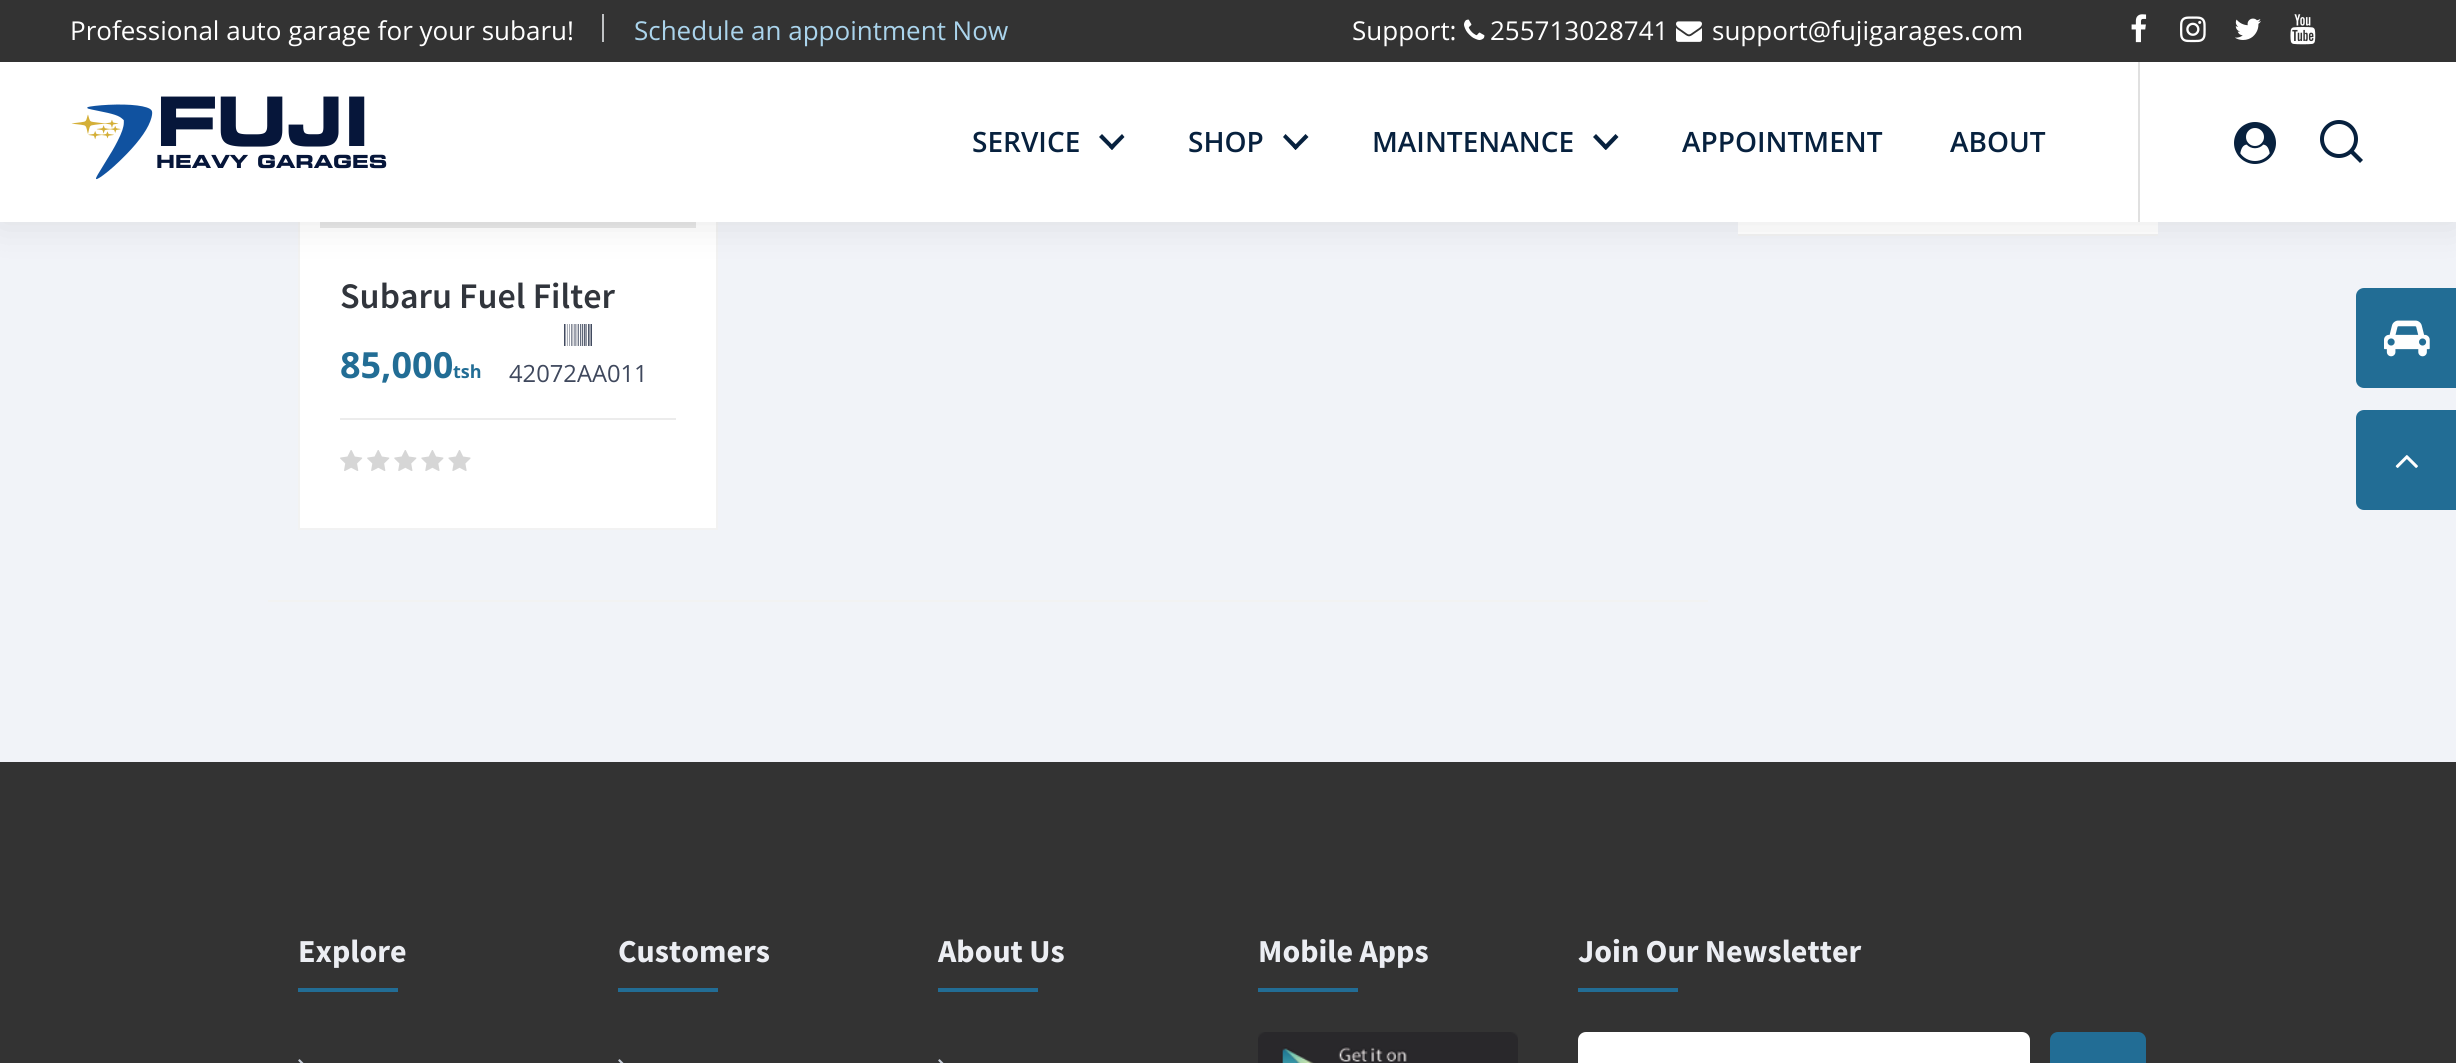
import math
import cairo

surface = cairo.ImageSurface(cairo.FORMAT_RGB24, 2456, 1063)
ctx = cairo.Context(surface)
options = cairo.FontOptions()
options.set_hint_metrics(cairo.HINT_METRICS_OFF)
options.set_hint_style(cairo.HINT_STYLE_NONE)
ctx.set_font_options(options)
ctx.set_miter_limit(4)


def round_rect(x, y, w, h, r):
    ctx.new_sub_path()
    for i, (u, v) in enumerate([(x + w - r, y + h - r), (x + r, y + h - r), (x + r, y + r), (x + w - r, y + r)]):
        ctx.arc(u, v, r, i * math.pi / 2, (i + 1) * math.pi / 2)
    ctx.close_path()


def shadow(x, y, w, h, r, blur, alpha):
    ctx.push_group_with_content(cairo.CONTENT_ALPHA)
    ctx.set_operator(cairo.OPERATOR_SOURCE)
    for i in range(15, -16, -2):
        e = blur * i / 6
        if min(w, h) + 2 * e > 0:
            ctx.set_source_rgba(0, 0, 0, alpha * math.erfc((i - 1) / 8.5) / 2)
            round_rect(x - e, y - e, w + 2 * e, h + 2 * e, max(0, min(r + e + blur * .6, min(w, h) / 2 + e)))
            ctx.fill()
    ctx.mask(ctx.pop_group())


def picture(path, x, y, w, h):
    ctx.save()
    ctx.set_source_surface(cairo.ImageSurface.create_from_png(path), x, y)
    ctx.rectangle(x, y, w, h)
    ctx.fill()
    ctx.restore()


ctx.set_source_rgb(0.945, 0.953, 0.969)
ctx.paint()
ctx.set_source_rgb(1, 1, 1)
ctx.rectangle(1738, 222, 420, 12)
ctx.fill()
ctx.set_source_rgb(0.949, 0.949, 0.949)
ctx.rectangle(1738, 234, 420, 2)
ctx.fill()
ctx.set_source_rgb(1, 1, 1)
ctx.rectangle(300, 222, 416, 306)
ctx.fill()
ctx.rectangle(299, -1, 418, 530)
ctx.set_source_rgb(0.949, 0.949, 0.949)
ctx.stroke()
picture("img9.png", 320, 222, 376, 6)
ctx.set_source_rgb(0, 0, 0)
shadow(0, 0, 2456, 222, 0, 20, 0.1)
ctx.set_source_rgb(1, 1, 1)
ctx.rectangle(0, 62, 2456, 160)
ctx.fill()
ctx.set_source_rgb(0.2, 0.2, 0.2)
ctx.rectangle(0, 0, 2456, 62)
ctx.fill()
ctx.select_font_face("Open Sans")
ctx.set_font_size(26)
ctx.set_source_rgb(1, 1, 1)
ctx.move_to(70, 40)
ctx.show_text("Professional auto garage for your subaru!")
ctx.set_source_rgb(0.753, 0.761, 0.769)
ctx.rectangle(602, 14, 2, 28)
ctx.fill()
ctx.set_source_rgb(0.667, 0.831, 0.925)
ctx.move_to(634, 40)
ctx.show_text("Schedule an appointment Now")
ctx.set_source_rgb(1, 1, 1)
ctx.move_to(1352, 40)
ctx.show_text("Support:")
picture("img1.png", 1464, 19, 21, 21)
ctx.move_to(1490, 40)
ctx.show_text("255713028741")
picture("img2.png", 1676, 21, 26, 21)
ctx.move_to(1712, 40)
ctx.show_text("support@fujigarages.com")
picture("img3.png", 2131, 14, 16, 29)
picture("img4.png", 2180, 16, 26, 27)
picture("img5.png", 2235, 18, 26, 22)
picture("img6.png", 2290, 14, 26, 31)
picture("img7.png", 71, 104, 82, 76)
ctx.select_font_face("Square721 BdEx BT", cairo.FONT_SLANT_NORMAL, cairo.FONT_WEIGHT_BOLD)
ctx.set_font_size(68)
ctx.set_source_rgb(0.024, 0.086, 0.227)
ctx.move_to(156, 146)
ctx.show_text("FUJI")
ctx.set_font_size(18)
ctx.move_to(156, 168)
ctx.show_text("HEAVY GARAGES")
ctx.select_font_face("Open Sans SemiBold")
ctx.set_font_size(28)
ctx.set_source_rgb(0.031, 0.129, 0.243)
ctx.move_to(972, 152)
ctx.show_text("SERVICE")
ctx.new_path()
ctx.move_to(1102, 134)
ctx.line_to(1114.5, 147)
ctx.line_to(1112, 150)
ctx.line_to(1099, 137)
ctx.close_path()
ctx.fill()
ctx.new_path()
ctx.move_to(1109, 147)
ctx.line_to(1122, 134)
ctx.line_to(1124.5, 137)
ctx.line_to(1112, 150)
ctx.close_path()
ctx.fill()
ctx.move_to(1188, 152)
ctx.show_text("SHOP")
ctx.new_path()
ctx.move_to(1285.5, 134)
ctx.line_to(1298.5, 147)
ctx.line_to(1295.5, 150)
ctx.line_to(1283, 137)
ctx.close_path()
ctx.fill()
ctx.new_path()
ctx.move_to(1293, 147)
ctx.line_to(1305.5, 134)
ctx.line_to(1308.5, 137)
ctx.line_to(1295.5, 150)
ctx.close_path()
ctx.fill()
ctx.move_to(1372, 152)
ctx.show_text("MAINTENANCE")
ctx.new_path()
ctx.move_to(1596, 134)
ctx.line_to(1608.5, 147)
ctx.line_to(1605.5, 150)
ctx.line_to(1593, 137)
ctx.close_path()
ctx.fill()
ctx.new_path()
ctx.move_to(1603, 147)
ctx.line_to(1615.5, 134)
ctx.line_to(1618.5, 137)
ctx.line_to(1606, 150)
ctx.close_path()
ctx.fill()
ctx.move_to(1682, 152)
ctx.show_text("APPOINTMENT")
ctx.move_to(1950, 152)
ctx.show_text("ABOUT")
ctx.set_source_rgb(0.878, 0.878, 0.878)
ctx.rectangle(2138, 62, 2, 160)
ctx.fill()
picture("img8.png", 2234, 122, 42, 42)
ctx.arc(2339, 139, 17, 0, 2 * math.pi)
ctx.set_source_rgb(0.031, 0.129, 0.243)
ctx.set_line_width(4)
ctx.stroke()
ctx.new_path()
ctx.move_to(2352, 149)
ctx.line_to(2363, 160)
ctx.line_to(2360, 163)
ctx.line_to(2349, 152)
ctx.close_path()
ctx.fill()
ctx.set_source_rgb(0.949, 0.949, 0.949)
ctx.rectangle(268, 600, 1440, 2)
ctx.fill()
ctx.select_font_face("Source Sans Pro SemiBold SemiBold")
ctx.set_font_size(36)
ctx.set_source_rgb(0.192, 0.208, 0.235)
ctx.move_to(340, 308)
ctx.show_text("Subaru Fuel Filter")
ctx.select_font_face("Open Sans", cairo.FONT_SLANT_NORMAL, cairo.FONT_WEIGHT_BOLD)
ctx.set_source_rgb(0.133, 0.427, 0.584)
ctx.move_to(340, 378)
ctx.show_text("85,000")
ctx.set_font_size(18)
ctx.move_to(453, 378)
ctx.show_text("tsh")
picture("img10.png", 564, 324, 28, 22)
ctx.select_font_face("Open Sans")
ctx.set_font_size(23.75)
ctx.set_source_rgb(0.247, 0.282, 0.365)
ctx.move_to(509, 382)
ctx.show_text("42072AA011")
ctx.set_source_rgb(0.925, 0.925, 0.925)
ctx.rectangle(340, 418, 336, 2)
ctx.fill()
picture("img11.png", 340, 450, 131, 21)
ctx.set_source_rgb(0.133, 0.427, 0.584)
round_rect(2356, 288, 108, 100, 8)
ctx.fill()
picture("img12.png", 2384, 320, 46, 37)
round_rect(2356, 410, 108, 100, 8)
ctx.fill()
picture("img13.png", 2395, 455, 23, 13)
ctx.set_source_rgb(0.2, 0.2, 0.2)
ctx.rectangle(0, 762, 2456, 301)
ctx.fill()
ctx.select_font_face("Source Sans Pro", cairo.FONT_SLANT_NORMAL, cairo.FONT_WEIGHT_BOLD)
ctx.set_font_size(32)
ctx.set_source_rgb(0.922, 0.933, 0.953)
ctx.move_to(298, 962)
ctx.show_text("Explore")
ctx.set_source_rgb(0.133, 0.427, 0.584)
ctx.rectangle(298, 988, 100, 4)
ctx.fill()
picture("img14.png", 298, 1059, 6, 4)
ctx.set_source_rgb(0.922, 0.933, 0.953)
ctx.move_to(618, 962)
ctx.show_text("Customers")
ctx.set_source_rgb(0.133, 0.427, 0.584)
ctx.rectangle(618, 988, 100, 4)
ctx.fill()
picture("img14.png", 618, 1059, 6, 4)
ctx.set_source_rgb(0.922, 0.933, 0.953)
ctx.move_to(938, 962)
ctx.show_text("About Us")
ctx.set_source_rgb(0.133, 0.427, 0.584)
ctx.rectangle(938, 988, 100, 4)
ctx.fill()
picture("img14.png", 938, 1059, 6, 4)
ctx.set_source_rgb(0.922, 0.933, 0.953)
ctx.move_to(1258, 962)
ctx.show_text("Mobile Apps")
ctx.set_source_rgb(0.133, 0.427, 0.584)
ctx.rectangle(1258, 988, 100, 4)
ctx.fill()
picture("img15.png", 1258, 1032, 260, 31)
ctx.set_source_rgb(0.922, 0.933, 0.953)
ctx.move_to(1578, 962)
ctx.show_text("Join Our Newsletter")
ctx.set_source_rgb(0.133, 0.427, 0.584)
ctx.rectangle(1578, 988, 100, 4)
ctx.fill()
ctx.set_source_rgb(1, 1, 1)
round_rect(1580, 1034, 448, 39, 6)
ctx.fill_preserve()
ctx.stroke()
ctx.set_source_rgb(0.133, 0.427, 0.584)
round_rect(2050, 1032, 96, 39, 8)
ctx.fill()
surface.write_to_png("page.png")
